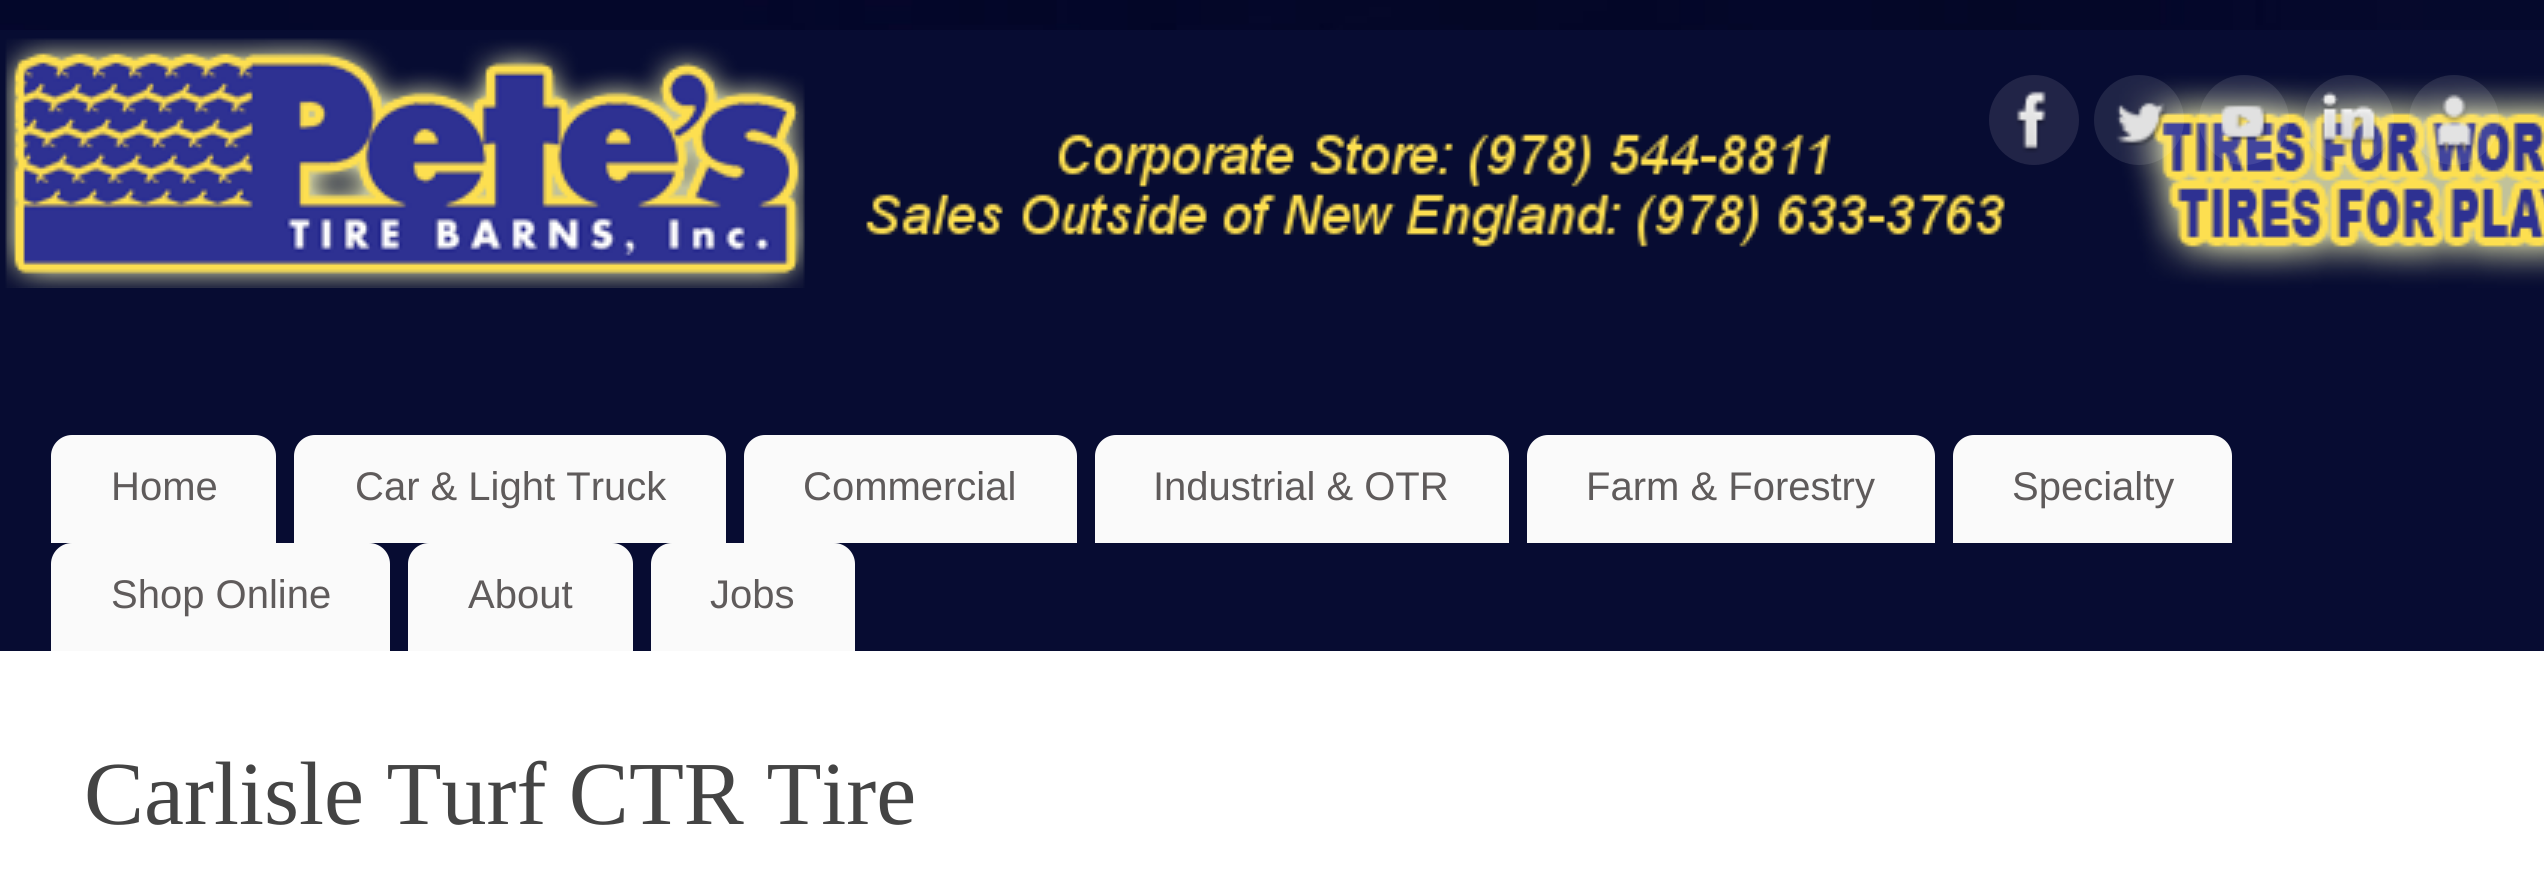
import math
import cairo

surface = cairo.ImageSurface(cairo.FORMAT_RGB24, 2544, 877)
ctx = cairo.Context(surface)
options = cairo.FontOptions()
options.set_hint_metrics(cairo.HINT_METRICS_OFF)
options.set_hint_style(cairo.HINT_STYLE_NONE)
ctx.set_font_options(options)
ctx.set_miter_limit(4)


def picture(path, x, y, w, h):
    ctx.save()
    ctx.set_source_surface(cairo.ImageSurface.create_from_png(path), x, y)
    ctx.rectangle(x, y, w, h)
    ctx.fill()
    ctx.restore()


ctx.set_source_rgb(1, 1, 1)
ctx.paint()
picture("img1.png", 0, 0, 2544, 30)
ctx.set_source_rgb(0.031, 0.047, 0.196)
ctx.rectangle(0, 30, 2544, 621)
ctx.fill()
picture("img2.png", 5, 38, 2539, 250)
ctx.set_source_rgb(0.129, 0.141, 0.278)
ctx.arc(2034, 120, 45, 0, 2 * math.pi)
ctx.fill()
picture("img3.png", 2016, 91, 30, 62)
ctx.set_source_rgba(1, 1, 1, 0.1)
ctx.arc(2139, 120, 45, 0, 2 * math.pi)
ctx.fill()
picture("img4.png", 2116, 102, 51, 44)
ctx.arc(2244, 120, 45, 0, 2 * math.pi)
ctx.fill()
picture("img5.png", 2221, 105, 46, 36)
ctx.arc(2349, 120, 45, 0, 2 * math.pi)
ctx.fill()
picture("img6.png", 2320, 91, 58, 54)
ctx.arc(2454, 120, 45, 0, 2 * math.pi)
ctx.fill()
picture("img7.png", 2434, 94, 40, 57)
ctx.set_source_rgb(0.98, 0.98, 0.98)
ctx.new_path()
ctx.move_to(72, 435)
ctx.line_to(255, 435)
ctx.curve_to(266.5, 435, 276, 444.5, 276, 456)
ctx.line_to(276, 543)
ctx.line_to(51, 543)
ctx.line_to(51, 456)
ctx.curve_to(51, 444.5, 60.5, 435, 72, 435)
ctx.close_path()
ctx.fill()
ctx.select_font_face("Liberation Sans")
ctx.set_font_size(40)
ctx.set_source_rgb(0.373, 0.357, 0.357)
ctx.move_to(111, 500)
ctx.show_text("Home")
ctx.set_source_rgb(0.98, 0.98, 0.98)
ctx.new_path()
ctx.move_to(315, 435)
ctx.line_to(705, 435)
ctx.curve_to(716.5, 435, 726, 444.5, 726, 456)
ctx.line_to(726, 543)
ctx.line_to(294, 543)
ctx.line_to(294, 456)
ctx.curve_to(294, 444.5, 303.5, 435, 315, 435)
ctx.close_path()
ctx.fill()
ctx.set_source_rgb(0.373, 0.357, 0.357)
ctx.move_to(355, 500)
ctx.show_text("Car & Light Truck")
ctx.set_source_rgb(0.98, 0.98, 0.98)
ctx.new_path()
ctx.move_to(765, 435)
ctx.line_to(1056, 435)
ctx.curve_to(1067.5, 435, 1077, 444.5, 1077, 456)
ctx.line_to(1077, 543)
ctx.line_to(744, 543)
ctx.line_to(744, 456)
ctx.curve_to(744, 444.5, 753.5, 435, 765, 435)
ctx.close_path()
ctx.fill()
ctx.set_source_rgb(0.373, 0.357, 0.357)
ctx.move_to(803, 500)
ctx.show_text("Commercial")
ctx.set_source_rgb(0.98, 0.98, 0.98)
ctx.new_path()
ctx.move_to(1116, 435)
ctx.line_to(1488, 435)
ctx.curve_to(1499.5, 435, 1509, 444.5, 1509, 456)
ctx.line_to(1509, 543)
ctx.line_to(1095, 543)
ctx.line_to(1095, 456)
ctx.curve_to(1095, 444.5, 1104.5, 435, 1116, 435)
ctx.close_path()
ctx.fill()
ctx.set_source_rgb(0.373, 0.357, 0.357)
ctx.move_to(1153, 500)
ctx.show_text("Industrial & OTR")
ctx.set_source_rgb(0.98, 0.98, 0.98)
ctx.new_path()
ctx.move_to(1548, 435)
ctx.line_to(1914, 435)
ctx.curve_to(1925.5, 435, 1935, 444.5, 1935, 456)
ctx.line_to(1935, 543)
ctx.line_to(1527, 543)
ctx.line_to(1527, 456)
ctx.curve_to(1527, 444.5, 1536.5, 435, 1548, 435)
ctx.close_path()
ctx.fill()
ctx.set_source_rgb(0.373, 0.357, 0.357)
ctx.move_to(1586, 500)
ctx.show_text("Farm & Forestry")
ctx.set_source_rgb(0.98, 0.98, 0.98)
ctx.new_path()
ctx.move_to(1974, 435)
ctx.line_to(2211, 435)
ctx.curve_to(2222.5, 435, 2232, 444.5, 2232, 456)
ctx.line_to(2232, 543)
ctx.line_to(1953, 543)
ctx.line_to(1953, 456)
ctx.curve_to(1953, 444.5, 1962.5, 435, 1974, 435)
ctx.close_path()
ctx.fill()
ctx.set_source_rgb(0.373, 0.357, 0.357)
ctx.move_to(2012, 500)
ctx.show_text("Specialty")
ctx.set_source_rgb(0.98, 0.98, 0.98)
ctx.new_path()
ctx.move_to(72, 543)
ctx.line_to(369, 543)
ctx.curve_to(380.5, 543, 390, 552.5, 390, 564)
ctx.line_to(390, 651)
ctx.line_to(51, 651)
ctx.line_to(51, 564)
ctx.curve_to(51, 552.5, 60.5, 543, 72, 543)
ctx.close_path()
ctx.fill()
ctx.set_source_rgb(0.373, 0.357, 0.357)
ctx.move_to(111, 608)
ctx.show_text("Shop Online")
ctx.set_source_rgb(0.98, 0.98, 0.98)
ctx.new_path()
ctx.move_to(429, 543)
ctx.line_to(612, 543)
ctx.curve_to(623.5, 543, 633, 552.5, 633, 564)
ctx.line_to(633, 651)
ctx.line_to(408, 651)
ctx.line_to(408, 564)
ctx.curve_to(408, 552.5, 417.5, 543, 429, 543)
ctx.close_path()
ctx.fill()
ctx.set_source_rgb(0.373, 0.357, 0.357)
ctx.move_to(468, 608)
ctx.show_text("About")
ctx.set_source_rgb(0.98, 0.98, 0.98)
ctx.new_path()
ctx.move_to(672, 543)
ctx.line_to(834, 543)
ctx.curve_to(845.5, 543, 855, 552.5, 855, 564)
ctx.line_to(855, 651)
ctx.line_to(651, 651)
ctx.line_to(651, 564)
ctx.curve_to(651, 552.5, 660.5, 543, 672, 543)
ctx.close_path()
ctx.fill()
ctx.set_source_rgb(0.373, 0.357, 0.357)
ctx.move_to(710, 608)
ctx.show_text("Jobs")
ctx.select_font_face("Liberation Serif")
ctx.set_font_size(90)
ctx.set_source_rgb(0.267, 0.267, 0.267)
ctx.move_to(84, 824)
ctx.show_text("Carlisle Turf CTR Tire")
surface.write_to_png("page.png")
